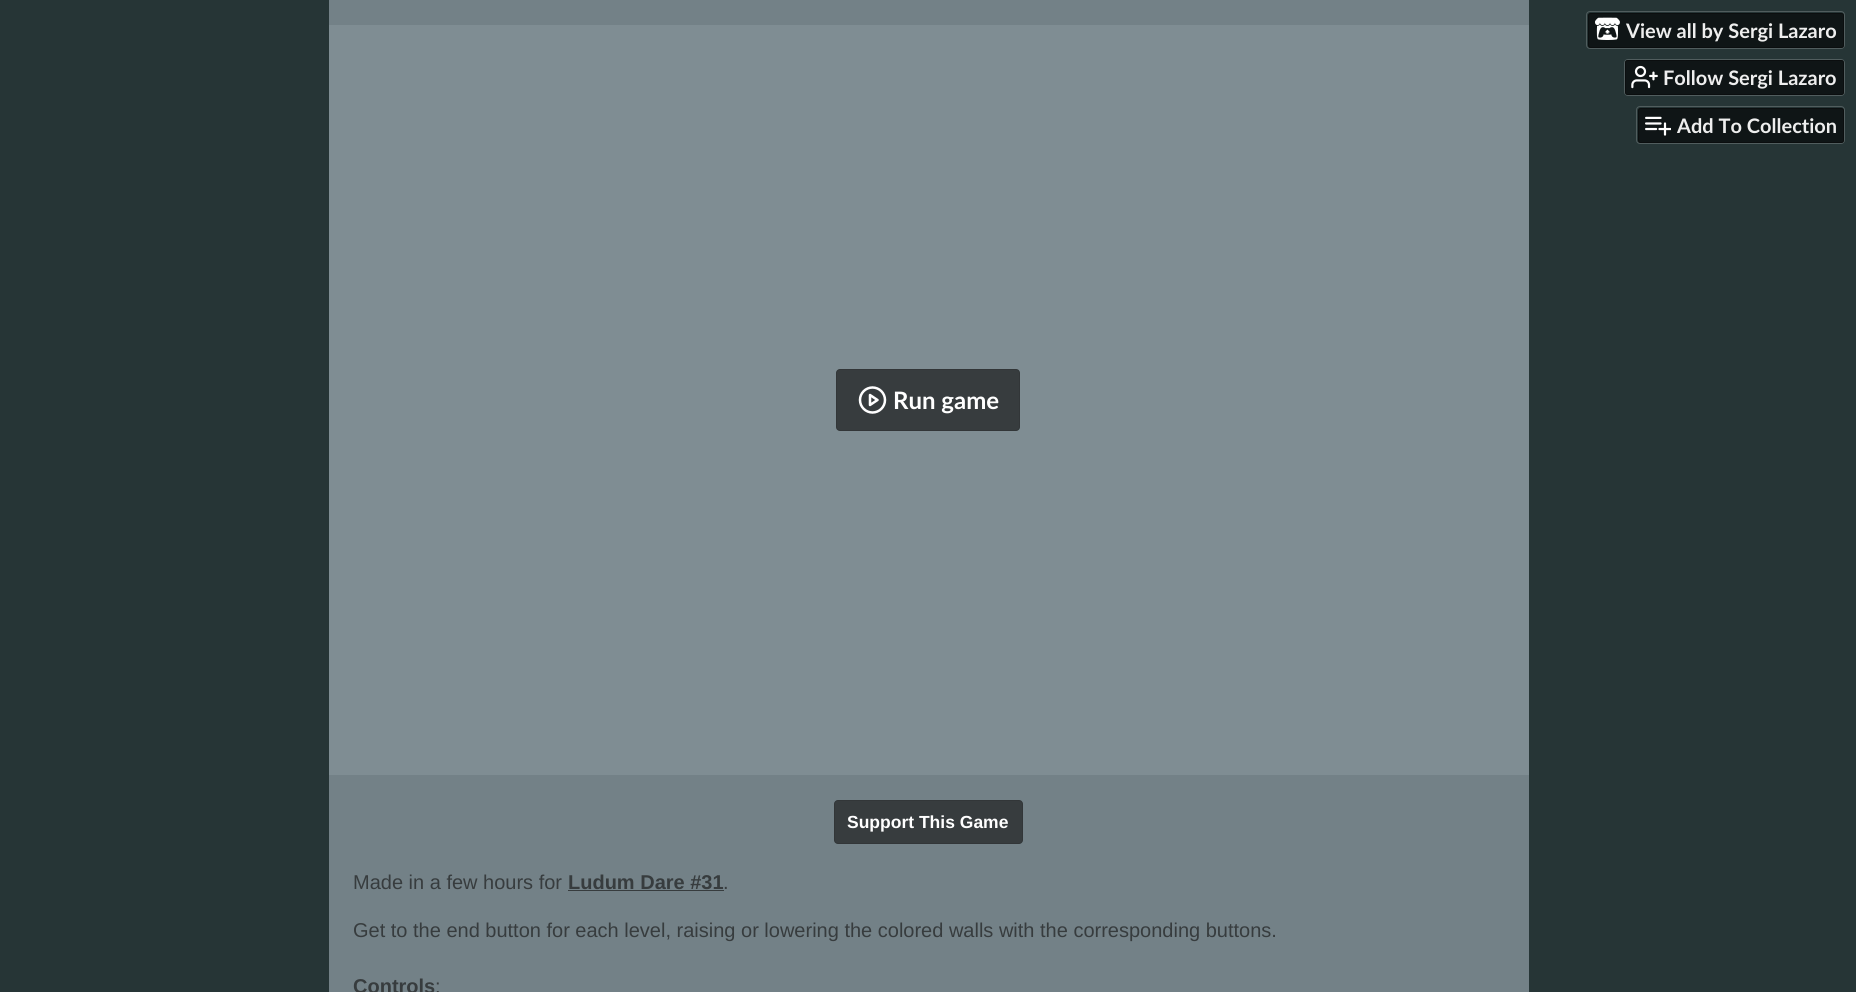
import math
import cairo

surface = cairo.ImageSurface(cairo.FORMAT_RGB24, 1856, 992)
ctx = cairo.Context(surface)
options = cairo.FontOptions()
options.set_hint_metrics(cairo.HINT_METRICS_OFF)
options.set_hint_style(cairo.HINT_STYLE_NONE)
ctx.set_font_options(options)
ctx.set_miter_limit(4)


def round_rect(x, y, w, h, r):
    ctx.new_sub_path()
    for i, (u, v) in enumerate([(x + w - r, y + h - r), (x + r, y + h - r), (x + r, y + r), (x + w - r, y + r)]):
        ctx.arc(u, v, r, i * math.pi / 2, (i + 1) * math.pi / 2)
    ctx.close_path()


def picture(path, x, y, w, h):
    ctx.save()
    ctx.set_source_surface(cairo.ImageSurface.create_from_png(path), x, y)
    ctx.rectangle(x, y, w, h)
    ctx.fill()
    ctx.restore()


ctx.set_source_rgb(0.149, 0.208, 0.212)
ctx.paint()
round_rect(1586.5, 11.5, 258, 37, 3.5)
ctx.set_source_rgb(0.318, 0.365, 0.369)
ctx.set_line_width(1)
ctx.stroke()
ctx.set_source_rgba(0, 0, 0, 0.6)
round_rect(1588, 13, 256, 35, 2.5)
ctx.fill()
round_rect(1588.5, 13.5, 255, 34, 2)
ctx.set_source_rgba(0.039, 0.039, 0.039, 0.5)
ctx.stroke()
picture("img1.png", 1595, 17, 25, 23)
ctx.select_font_face("Lato", cairo.FONT_SLANT_NORMAL, cairo.FONT_WEIGHT_BOLD)
ctx.set_font_size(20)
ctx.set_source_rgb(0.933, 0.933, 0.933)
ctx.move_to(1626, 38)
ctx.show_text("View all by Sergi Lazaro")
round_rect(1624.5, 59.5, 220, 36, 3.5)
ctx.set_source_rgb(0.318, 0.365, 0.369)
ctx.stroke()
ctx.set_source_rgba(0, 0, 0, 0.6)
round_rect(1625, 60, 219, 35, 2.5)
ctx.fill()
round_rect(1625.5, 60.5, 218, 34, 2)
ctx.set_source_rgba(0.039, 0.039, 0.039, 0.5)
ctx.stroke()
picture("img2.png", 1631, 65, 27, 24)
ctx.set_source_rgb(0.933, 0.933, 0.933)
ctx.move_to(1663, 85)
ctx.show_text("Follow Sergi Lazaro")
round_rect(1636.5, 106.5, 208, 37, 3.5)
ctx.set_source_rgb(0.318, 0.365, 0.369)
ctx.stroke()
ctx.set_source_rgba(0, 0, 0, 0.6)
round_rect(1638, 108, 206, 35, 2.5)
ctx.fill()
round_rect(1638.5, 108.5, 205, 34, 2)
ctx.set_source_rgba(0.039, 0.039, 0.039, 0.5)
ctx.stroke()
picture("img3.png", 1645, 116, 26, 20)
ctx.set_source_rgb(0.933, 0.933, 0.933)
ctx.move_to(1677, 133)
ctx.show_text("Add To Collection")
ctx.set_source_rgb(0.451, 0.506, 0.529)
ctx.rectangle(329, 0, 1200, 992)
ctx.fill()
ctx.set_source_rgb(0.498, 0.553, 0.576)
ctx.rectangle(329, 25, 1200, 750)
ctx.fill()
ctx.set_source_rgb(0.216, 0.235, 0.243)
round_rect(836, 369, 184, 62, 4)
ctx.fill()
round_rect(836.5, 369.5, 183, 61, 3.5)
ctx.set_source_rgba(0, 0, 0, 0.1)
ctx.stroke()
ctx.arc(872.5, 400, 12.5, 0, 2 * math.pi)
ctx.set_source_rgb(1, 1, 1)
ctx.set_line_width(2.5)
ctx.stroke()
ctx.new_path()
ctx.move_to(870, 395)
ctx.line_to(877.5, 400)
ctx.line_to(870, 405)
ctx.close_path()
ctx.set_line_cap(cairo.LINE_CAP_ROUND)
ctx.set_line_join(cairo.LINE_JOIN_ROUND)
ctx.stroke()
ctx.set_font_size(24)
ctx.move_to(893, 409)
ctx.show_text("Run game")
ctx.set_source_rgb(0.216, 0.235, 0.243)
round_rect(834, 800, 189, 44, 4)
ctx.fill()
round_rect(834.5, 800.5, 188, 43, 3.5)
ctx.set_source_rgba(0, 0, 0, 0.1)
ctx.set_line_width(1)
ctx.set_line_cap(cairo.LINE_CAP_BUTT)
ctx.set_line_join(cairo.LINE_JOIN_MITER)
ctx.stroke()
ctx.select_font_face("Liberation Sans", cairo.FONT_SLANT_NORMAL, cairo.FONT_WEIGHT_BOLD)
ctx.set_font_size(17.5)
ctx.set_source_rgb(1, 1, 1)
ctx.move_to(847, 828)
ctx.show_text("Support This Game")
ctx.select_font_face("Liberation Sans")
ctx.set_font_size(20)
ctx.set_source_rgb(0.216, 0.235, 0.243)
ctx.move_to(353, 889)
ctx.show_text("Made in a few hours for")
ctx.select_font_face("Liberation Sans", cairo.FONT_SLANT_NORMAL, cairo.FONT_WEIGHT_BOLD)
ctx.move_to(568, 889)
ctx.show_text("Ludum Dare #31")
ctx.rectangle(568, 890, 156, 1)
ctx.fill()
ctx.select_font_face("Liberation Sans")
ctx.move_to(723, 889)
ctx.show_text(".")
ctx.move_to(353, 937)
ctx.show_text("Get to the end button for each level, raising or lowering the colored walls with the corresponding buttons.")
ctx.select_font_face("Liberation Sans", cairo.FONT_SLANT_NORMAL, cairo.FONT_WEIGHT_BOLD)
ctx.move_to(353, 993)
ctx.show_text("Controls")
ctx.select_font_face("Liberation Sans")
ctx.move_to(435, 993)
ctx.show_text(":")
surface.write_to_png("page.png")
